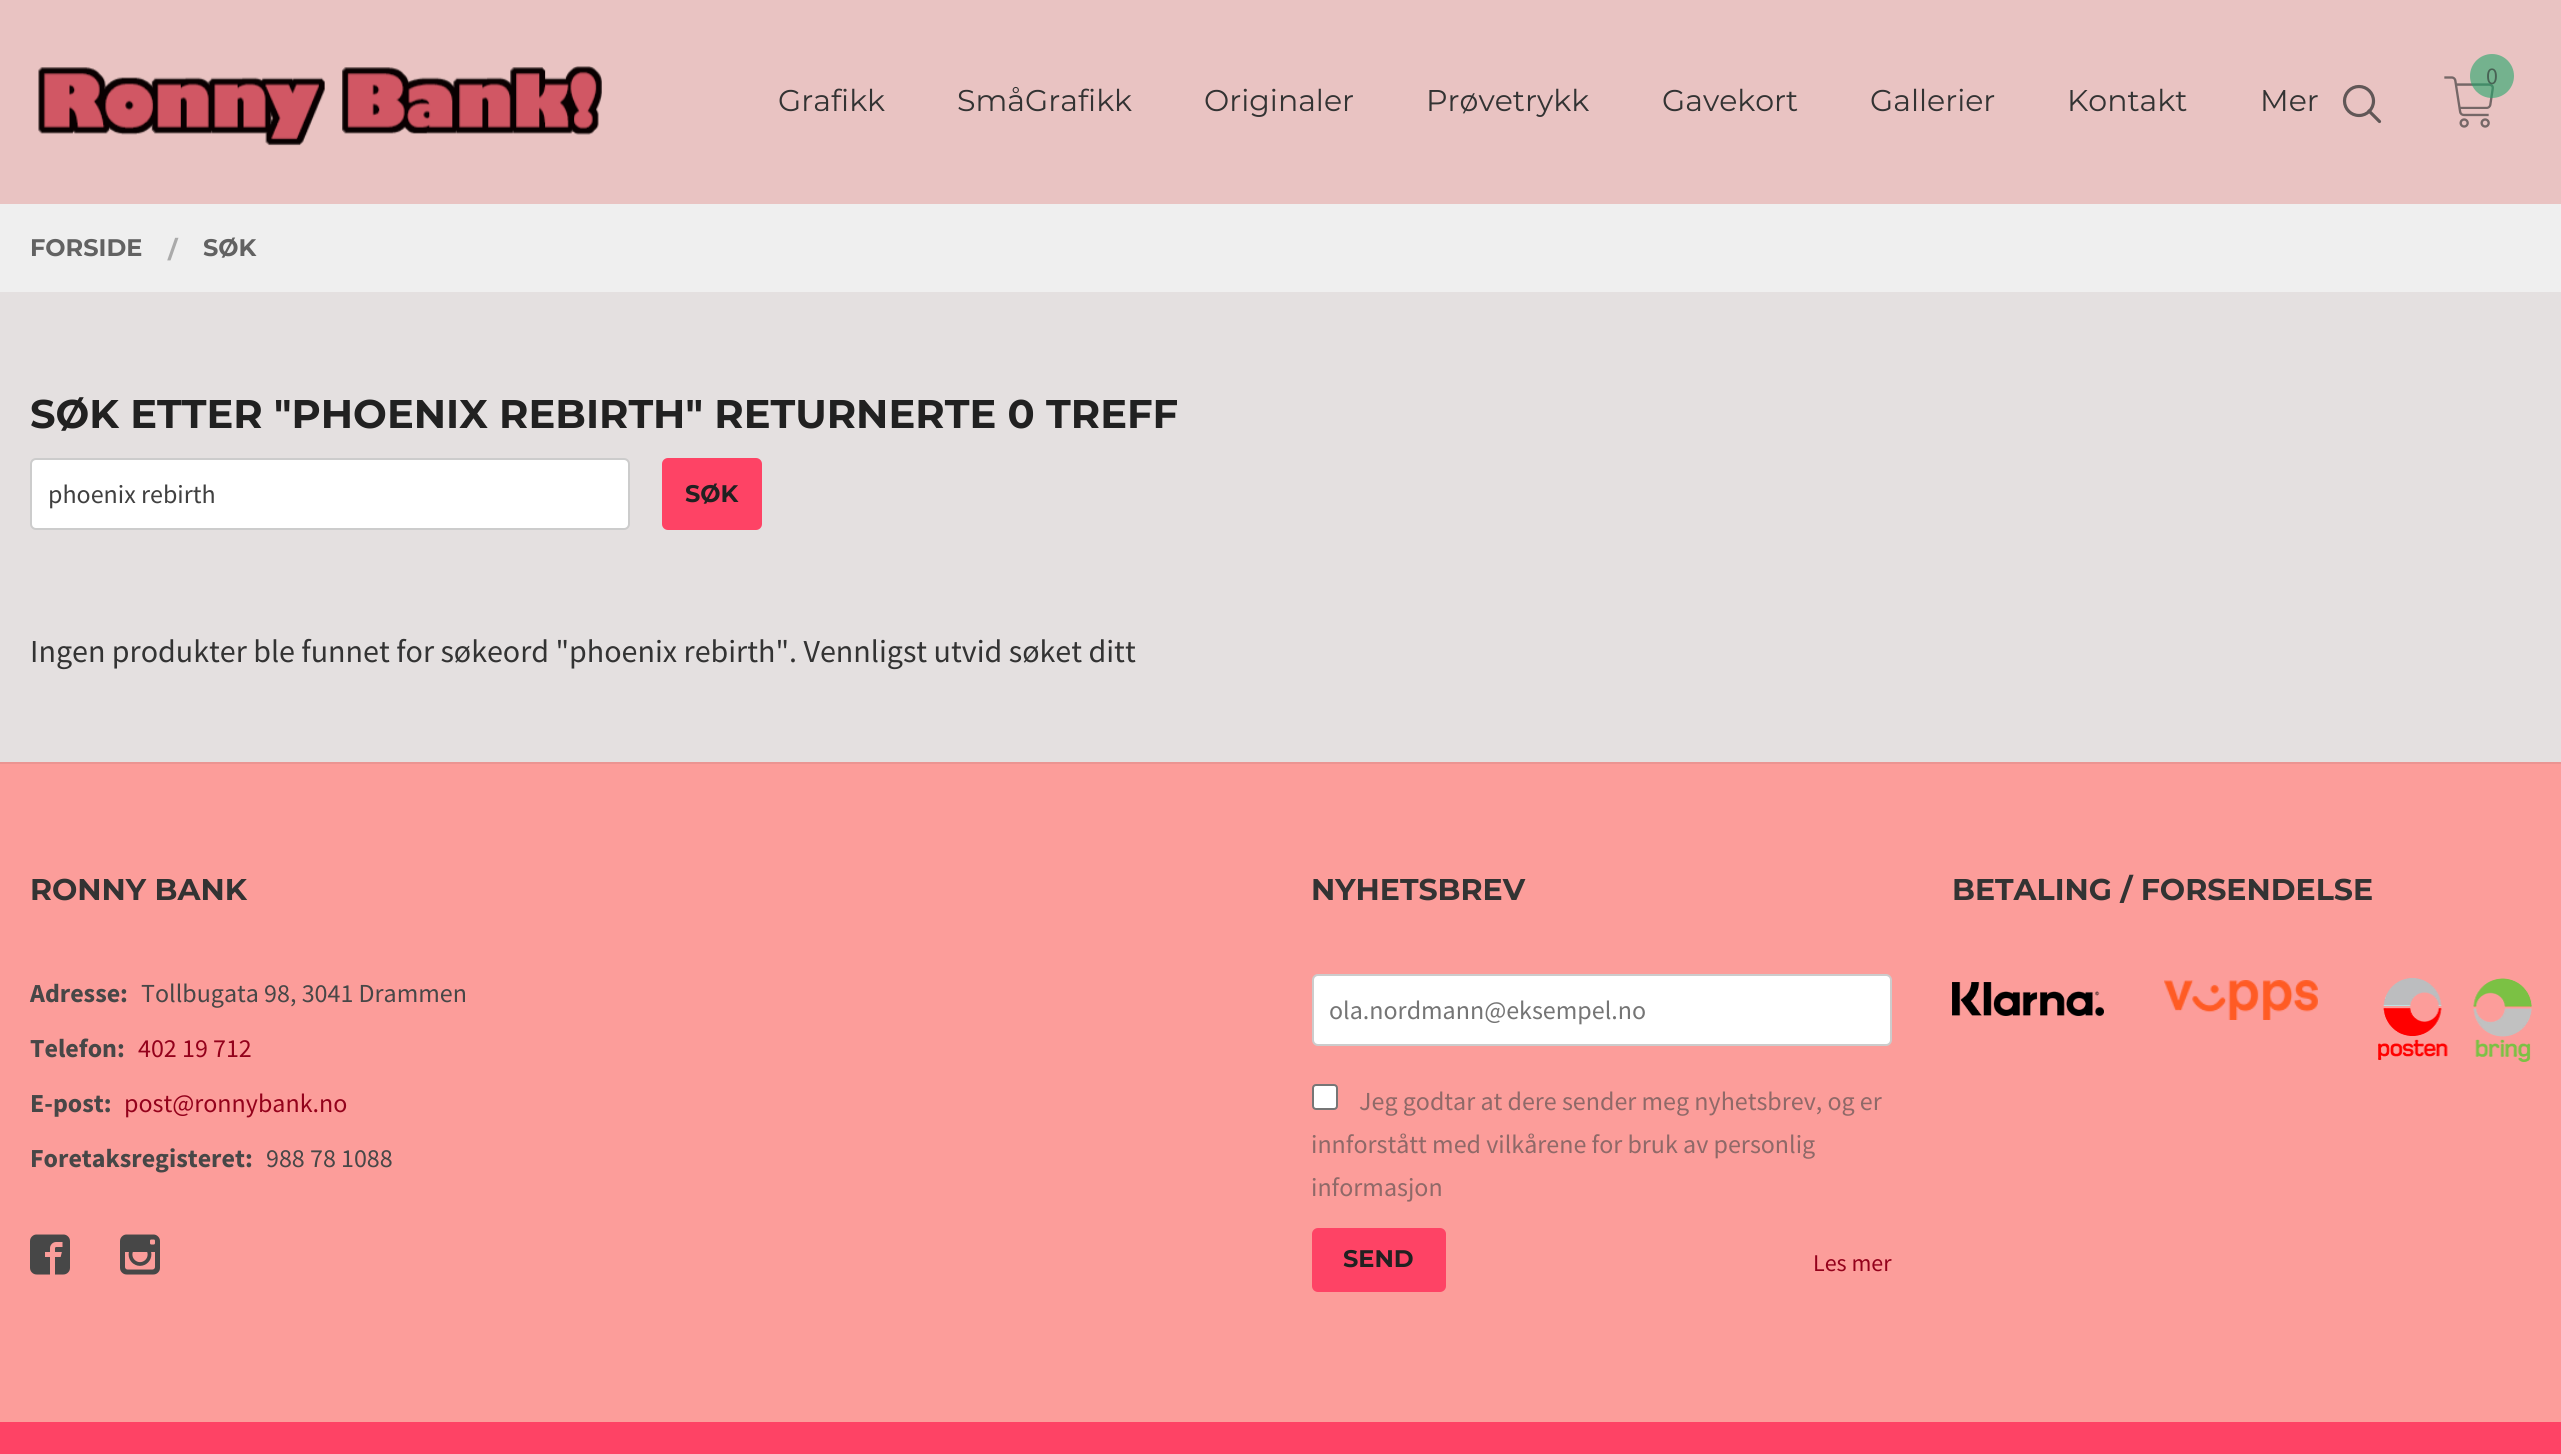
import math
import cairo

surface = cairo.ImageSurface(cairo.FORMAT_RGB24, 2561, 1454)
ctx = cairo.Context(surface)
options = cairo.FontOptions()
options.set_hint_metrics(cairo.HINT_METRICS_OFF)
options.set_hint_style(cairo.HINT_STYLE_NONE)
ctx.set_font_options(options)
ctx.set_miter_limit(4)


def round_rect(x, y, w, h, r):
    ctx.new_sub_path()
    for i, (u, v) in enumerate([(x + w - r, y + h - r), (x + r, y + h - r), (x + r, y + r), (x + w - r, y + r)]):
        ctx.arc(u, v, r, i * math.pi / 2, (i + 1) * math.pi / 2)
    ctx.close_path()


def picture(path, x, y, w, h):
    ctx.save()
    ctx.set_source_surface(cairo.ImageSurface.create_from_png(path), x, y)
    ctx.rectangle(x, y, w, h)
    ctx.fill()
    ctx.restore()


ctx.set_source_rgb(0.937, 0.937, 0.937)
ctx.paint()
ctx.set_source_rgb(0.914, 0.765, 0.761)
ctx.rectangle(0, 0, 2561, 204)
ctx.fill()
picture("img1.png", 2444, 76, 50, 52)
ctx.set_source_rgba(0.125, 0.647, 0.416, 0.58)
ctx.arc(2492, 76, 22, 0, 2 * math.pi)
ctx.fill()
ctx.select_font_face("Source Sans Pro")
ctx.set_font_size(24)
ctx.set_source_rgb(0.282, 0.384, 0.329)
ctx.move_to(2486, 84)
ctx.show_text("0")
picture("img2.png", 38, 66, 564, 80)
ctx.select_font_face("Montserrat")
ctx.set_font_size(30)
ctx.set_source_rgb(0.2, 0.2, 0.2)
ctx.move_to(778, 111)
ctx.show_text("Grafikk")
ctx.move_to(957, 111)
ctx.show_text("SmåGrafikk")
ctx.move_to(1204, 111)
ctx.show_text("Originaler")
ctx.move_to(1426, 111)
ctx.show_text("Prøvetrykk")
ctx.move_to(1662, 111)
ctx.show_text("Gavekort")
ctx.move_to(1870, 111)
ctx.show_text("Gallerier")
ctx.move_to(2067, 111)
ctx.show_text("Kontakt")
ctx.move_to(2260, 111)
ctx.show_text("Mer")
ctx.new_path()
ctx.arc(2359, 101, 14.5, 0, 2 * math.pi)
ctx.set_source_rgb(0.38, 0.341, 0.341)
ctx.set_line_width(3.2)
ctx.stroke()
ctx.new_path()
ctx.move_to(2379.5, 121.5)
ctx.line_to(2369, 111)
ctx.set_line_cap(cairo.LINE_CAP_ROUND)
ctx.stroke()
ctx.select_font_face("Montserrat", cairo.FONT_SLANT_NORMAL, cairo.FONT_WEIGHT_BOLD)
ctx.set_font_size(24)
ctx.set_source_rgb(0.384, 0.384, 0.384)
ctx.move_to(30, 256)
ctx.show_text("FORSIDE")
ctx.set_source_rgb(0.667, 0.667, 0.667)
ctx.move_to(168, 258)
ctx.show_text("/")
ctx.set_source_rgb(0.384, 0.384, 0.384)
ctx.move_to(203, 256)
ctx.show_text("SØK")
ctx.set_source_rgb(0.894, 0.878, 0.878)
ctx.rectangle(0, 292, 2561, 470)
ctx.fill()
ctx.set_font_size(40)
ctx.set_source_rgb(0.129, 0.129, 0.129)
ctx.move_to(30, 428)
ctx.show_text("SØK ETTER \"PHOENIX REBIRTH\" RETURNERTE 0 TREFF")
ctx.set_source_rgb(1, 1, 1)
round_rect(31, 459, 598, 70, 5)
ctx.fill_preserve()
ctx.set_source_rgb(0.8, 0.8, 0.8)
ctx.set_line_width(2)
ctx.set_line_cap(cairo.LINE_CAP_BUTT)
ctx.stroke()
ctx.select_font_face("Source Sans Pro")
ctx.set_font_size(26)
ctx.set_source_rgb(0.251, 0.251, 0.251)
ctx.move_to(48, 503)
ctx.show_text("phoenix rebirth")
ctx.set_source_rgb(0.996, 0.263, 0.396)
round_rect(662, 458, 100, 72, 6)
ctx.fill()
ctx.select_font_face("Montserrat", cairo.FONT_SLANT_NORMAL, cairo.FONT_WEIGHT_BOLD)
ctx.set_font_size(24)
ctx.set_source_rgb(0.129, 0.129, 0.129)
ctx.move_to(685, 502)
ctx.show_text("SØK")
ctx.select_font_face("Source Sans Pro")
ctx.set_font_size(32)
ctx.set_source_rgb(0.2, 0.2, 0.2)
ctx.move_to(30, 662)
ctx.show_text("Ingen produkter ble funnet for søkeord \"phoenix rebirth\". Vennligst utvid søket ditt")
ctx.set_source_rgb(0.988, 0.616, 0.604)
ctx.rectangle(0, 764, 2561, 658)
ctx.fill()
ctx.set_source_rgb(0.918, 0.58, 0.573)
ctx.rectangle(0, 762, 2561, 2)
ctx.fill()
ctx.select_font_face("Montserrat", cairo.FONT_SLANT_NORMAL, cairo.FONT_WEIGHT_BOLD)
ctx.set_font_size(30)
ctx.set_source_rgb(0.2, 0.2, 0.2)
ctx.move_to(30, 900)
ctx.show_text("RONNY BANK")
ctx.select_font_face("Source Sans Pro", cairo.FONT_SLANT_NORMAL, cairo.FONT_WEIGHT_BOLD)
ctx.set_font_size(26)
ctx.set_source_rgb(0.278, 0.278, 0.278)
ctx.move_to(30, 1002)
ctx.show_text("Adresse:")
ctx.select_font_face("Source Sans Pro")
ctx.move_to(141, 1002)
ctx.show_text("Tollbugata 98, 3041 Drammen")
ctx.select_font_face("Source Sans Pro", cairo.FONT_SLANT_NORMAL, cairo.FONT_WEIGHT_BOLD)
ctx.move_to(30, 1057)
ctx.show_text("Telefon:")
ctx.select_font_face("Source Sans Pro")
ctx.set_source_rgb(0.576, 0.004, 0.106)
ctx.move_to(138, 1057)
ctx.show_text("402 19 712")
ctx.select_font_face("Source Sans Pro", cairo.FONT_SLANT_NORMAL, cairo.FONT_WEIGHT_BOLD)
ctx.set_source_rgb(0.278, 0.278, 0.278)
ctx.move_to(30, 1112)
ctx.show_text("E-post:")
ctx.select_font_face("Source Sans Pro")
ctx.set_source_rgb(0.576, 0.004, 0.106)
ctx.move_to(124, 1112)
ctx.show_text("post@ronnybank.no")
ctx.select_font_face("Source Sans Pro", cairo.FONT_SLANT_NORMAL, cairo.FONT_WEIGHT_BOLD)
ctx.set_source_rgb(0.278, 0.278, 0.278)
ctx.move_to(30, 1167)
ctx.show_text("Foretaksregisteret:")
ctx.select_font_face("Source Sans Pro")
ctx.move_to(266, 1167)
ctx.show_text("988 78 1088")
picture("img3.png", 30, 1234, 40, 41)
picture("img4.png", 120, 1234, 40, 41)
ctx.select_font_face("Montserrat", cairo.FONT_SLANT_NORMAL, cairo.FONT_WEIGHT_BOLD)
ctx.set_font_size(30)
ctx.set_source_rgb(0.2, 0.2, 0.2)
ctx.move_to(1311, 900)
ctx.show_text("NYHETSBREV")
ctx.set_source_rgb(1, 1, 1)
round_rect(1313, 975, 578, 70, 5)
ctx.fill_preserve()
ctx.set_source_rgb(0.8, 0.8, 0.8)
ctx.stroke()
ctx.select_font_face("Source Sans Pro")
ctx.set_font_size(26)
ctx.set_source_rgb(0.459, 0.459, 0.459)
ctx.move_to(1329, 1019)
ctx.show_text("ola.nordmann@eksempel.no")
ctx.set_source_rgb(1, 1, 1)
round_rect(1313, 1085, 24, 24, 3)
ctx.fill_preserve()
ctx.set_source_rgb(0.463, 0.463, 0.463)
ctx.stroke()
ctx.set_source_rgb(0.561, 0.412, 0.408)
ctx.move_to(1359, 1110)
ctx.show_text("Jeg godtar at dere sender meg nyhetsbrev, og er")
ctx.move_to(1311, 1153)
ctx.show_text("innforstått med vilkårene for bruk av personlig")
ctx.move_to(1311, 1196)
ctx.show_text("informasjon")
ctx.set_source_rgb(0.996, 0.263, 0.396)
round_rect(1312, 1228, 134, 64, 6)
ctx.fill()
ctx.select_font_face("Montserrat", cairo.FONT_SLANT_NORMAL, cairo.FONT_WEIGHT_BOLD)
ctx.set_font_size(24)
ctx.set_source_rgb(0.129, 0.129, 0.129)
ctx.move_to(1343, 1267)
ctx.show_text("SEND")
ctx.select_font_face("Source Sans Pro")
ctx.set_source_rgb(0.576, 0.004, 0.106)
ctx.move_to(1813, 1271)
ctx.show_text("Les mer")
ctx.select_font_face("Montserrat", cairo.FONT_SLANT_NORMAL, cairo.FONT_WEIGHT_BOLD)
ctx.set_font_size(30)
ctx.set_source_rgb(0.2, 0.2, 0.2)
ctx.move_to(1952, 900)
ctx.show_text("BETALING / FORSENDELSE")
picture("img5.png", 1952, 982, 152, 34)
picture("img6.png", 2164, 980, 154, 40)
picture("img7.png", 2378, 978, 154, 84)
ctx.set_source_rgb(0.996, 0.263, 0.396)
ctx.rectangle(0, 1422, 2561, 32)
ctx.fill()
surface.write_to_png("page.png")
